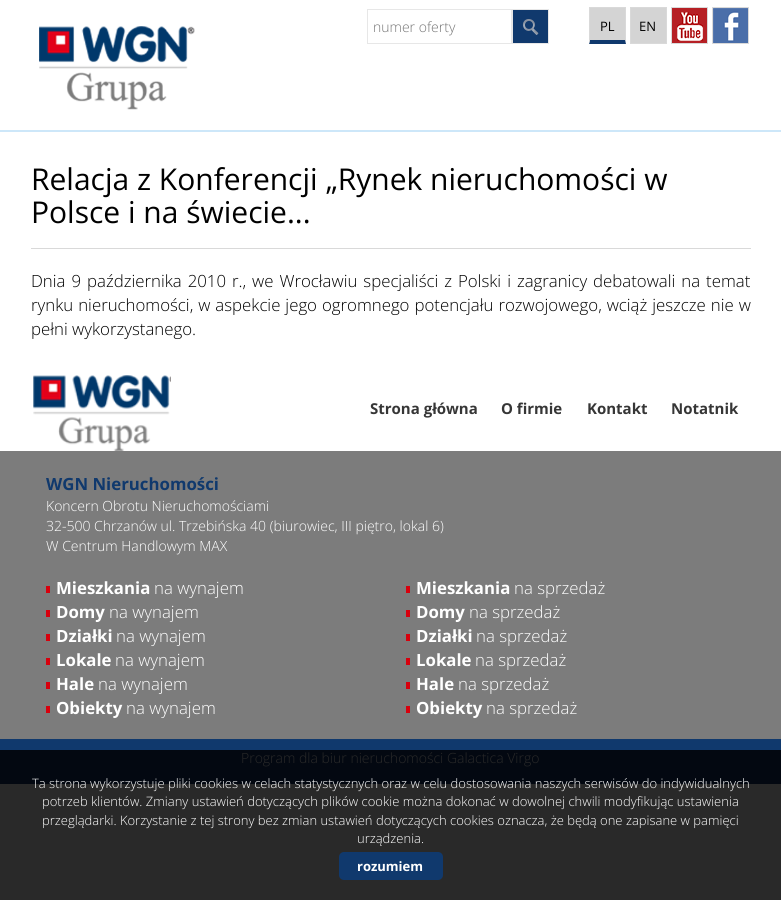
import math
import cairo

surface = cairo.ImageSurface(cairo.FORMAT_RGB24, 781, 900)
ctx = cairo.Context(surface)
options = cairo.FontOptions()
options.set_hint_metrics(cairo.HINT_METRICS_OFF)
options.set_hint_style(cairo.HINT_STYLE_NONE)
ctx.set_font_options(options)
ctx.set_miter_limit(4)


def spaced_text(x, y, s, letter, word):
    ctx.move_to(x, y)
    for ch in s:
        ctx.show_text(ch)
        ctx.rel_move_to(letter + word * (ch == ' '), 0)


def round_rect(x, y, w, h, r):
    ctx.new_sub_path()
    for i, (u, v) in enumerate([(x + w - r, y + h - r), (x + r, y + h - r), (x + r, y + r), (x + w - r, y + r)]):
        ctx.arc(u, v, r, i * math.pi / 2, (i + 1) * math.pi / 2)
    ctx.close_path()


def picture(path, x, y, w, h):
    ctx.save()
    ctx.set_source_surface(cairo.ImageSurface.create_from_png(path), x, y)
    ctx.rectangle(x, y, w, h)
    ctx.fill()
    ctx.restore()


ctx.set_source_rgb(1, 1, 1)
ctx.paint()
ctx.set_source_rgb(0.161, 0.161, 0.161)
ctx.rectangle(0, 784, 781, 116)
ctx.fill()
ctx.set_source_rgb(0.804, 0.906, 0.976)
ctx.rectangle(0, 130, 781, 2)
ctx.fill()
picture("img1.png", 39, 26, 156, 84)
ctx.rectangle(367.5, 9.5, 144, 34)
ctx.set_source_rgb(0.906, 0.906, 0.906)
ctx.set_line_width(1)
ctx.stroke()
ctx.select_font_face("Open Sans Light")
ctx.set_font_size(14)
ctx.set_source_rgb(0.459, 0.459, 0.459)
ctx.move_to(373, 32)
ctx.show_text("numer oferty")
ctx.set_source_rgb(0.063, 0.224, 0.427)
ctx.rectangle(513, 10, 35, 33)
ctx.fill()
picture("img2.png", 522, 19, 17, 16)
ctx.rectangle(512.5, 9.5, 36, 34)
ctx.set_source_rgb(0.906, 0.906, 0.906)
ctx.stroke()
ctx.set_source_rgb(0.831, 0.831, 0.831)
ctx.rectangle(590, 8, 35, 32)
ctx.fill()
ctx.set_source_rgb(0.851, 0.851, 0.851)
ctx.rectangle(589, 7, 37, 1)
ctx.fill()
ctx.new_path()
ctx.move_to(626, 7)
ctx.line_to(626, 44)
ctx.line_to(625, 40)
ctx.line_to(625, 8)
ctx.close_path()
ctx.fill()
ctx.set_source_rgb(0.063, 0.224, 0.427)
ctx.new_path()
ctx.move_to(626, 44)
ctx.line_to(589, 44)
ctx.line_to(590, 40)
ctx.line_to(625, 40)
ctx.close_path()
ctx.fill()
ctx.set_source_rgb(0.851, 0.851, 0.851)
ctx.new_path()
ctx.move_to(589, 44)
ctx.line_to(589, 7)
ctx.line_to(590, 8)
ctx.line_to(590, 40)
ctx.close_path()
ctx.fill()
ctx.select_font_face("Open Sans")
ctx.set_font_size(13)
ctx.set_source_rgb(0, 0, 0)
ctx.move_to(600, 31)
ctx.show_text("PL")
ctx.set_source_rgb(0.831, 0.831, 0.831)
ctx.rectangle(630.5, 7.5, 36, 36)
ctx.fill_preserve()
ctx.set_source_rgb(0.851, 0.851, 0.851)
ctx.stroke()
ctx.set_source_rgb(0, 0, 0)
ctx.move_to(639, 31)
ctx.show_text("EN")
picture("img3.png", 672, 8, 35, 35)
ctx.rectangle(671.5, 7.5, 36, 36)
ctx.set_source_rgb(0.851, 0.851, 0.851)
ctx.stroke()
picture("img4.png", 713, 8, 35, 35)
ctx.rectangle(712.5, 7.5, 36, 36)
ctx.stroke()
ctx.rectangle(31, 248, 720, 1)
ctx.fill()
ctx.set_font_size(30)
ctx.set_source_rgb(0, 0, 0)
ctx.move_to(31, 190)
ctx.show_text("Relacja z Konferencji „Rynek nieruchomości w")
ctx.move_to(31, 223)
ctx.show_text("Polsce i na świecie...")
ctx.select_font_face("Open Sans Light")
ctx.set_font_size(16.8)
spaced_text(31, 287, "Dnia 9 października 2010 r., we Wrocławiu specjaliści z Polski i zagranicy debatowali na temat", 0, 1.6)
spaced_text(31, 311, "rynku nieruchomości, w aspekcie jego ogromnego potencjału rozwojowego, wciąż jeszcze nie w", 0, 0.6)
ctx.move_to(31, 335)
ctx.show_text("pełni wykorzystanego.")
picture("img5.png", 33, 375, 138, 76)
ctx.select_font_face("Open Sans", cairo.FONT_SLANT_NORMAL, cairo.FONT_WEIGHT_BOLD)
ctx.set_font_size(15)
ctx.set_source_rgb(0.212, 0.212, 0.212)
ctx.move_to(370, 414)
ctx.show_text("Strona główna")
ctx.move_to(501, 414)
ctx.show_text("O firmie")
ctx.move_to(587, 414)
ctx.show_text("Kontakt")
ctx.move_to(671, 414)
ctx.show_text("Notatnik")
ctx.set_source_rgb(0.486, 0.486, 0.486)
ctx.rectangle(0, 451, 781, 288)
ctx.fill()
ctx.set_font_size(16.8)
ctx.set_source_rgb(0.063, 0.224, 0.427)
ctx.move_to(46, 490)
ctx.show_text("WGN Nieruchomości")
ctx.select_font_face("Open Sans Light")
ctx.set_font_size(14)
ctx.set_source_rgb(1, 1, 1)
ctx.move_to(46, 511)
ctx.show_text("Koncern Obrotu Nieruchomościami")
ctx.move_to(46, 531)
ctx.show_text("32-500 Chrzanów ul. Trzebińska 40 (biurowiec, III piętro, lokal 6)")
ctx.move_to(46, 551)
ctx.show_text("W Centrum Handlowym MAX")
ctx.set_source_rgb(0.847, 0, 0.051)
ctx.rectangle(46, 586, 4, 7)
ctx.fill()
ctx.select_font_face("Open Sans", cairo.FONT_SLANT_NORMAL, cairo.FONT_WEIGHT_BOLD)
ctx.set_font_size(16.8)
ctx.set_source_rgb(1, 1, 1)
ctx.move_to(56, 594)
ctx.show_text("Mieszkania")
ctx.select_font_face("Open Sans Light")
ctx.move_to(154, 594)
ctx.show_text("na wynajem")
ctx.set_source_rgb(0.847, 0, 0.051)
ctx.rectangle(46, 610, 4, 7)
ctx.fill()
ctx.select_font_face("Open Sans", cairo.FONT_SLANT_NORMAL, cairo.FONT_WEIGHT_BOLD)
ctx.set_source_rgb(1, 1, 1)
ctx.move_to(56, 618)
ctx.show_text("Domy")
ctx.select_font_face("Open Sans Light")
ctx.move_to(109, 618)
ctx.show_text("na wynajem")
ctx.set_source_rgb(0.847, 0, 0.051)
ctx.rectangle(46, 634, 4, 7)
ctx.fill()
ctx.select_font_face("Open Sans", cairo.FONT_SLANT_NORMAL, cairo.FONT_WEIGHT_BOLD)
ctx.set_source_rgb(1, 1, 1)
ctx.move_to(56, 642)
ctx.show_text("Działki")
ctx.select_font_face("Open Sans Light")
ctx.move_to(116, 642)
ctx.show_text("na wynajem")
ctx.set_source_rgb(0.847, 0, 0.051)
ctx.rectangle(46, 658, 4, 7)
ctx.fill()
ctx.select_font_face("Open Sans", cairo.FONT_SLANT_NORMAL, cairo.FONT_WEIGHT_BOLD)
ctx.set_source_rgb(1, 1, 1)
ctx.move_to(56, 666)
ctx.show_text("Lokale")
ctx.select_font_face("Open Sans Light")
ctx.move_to(115, 666)
ctx.show_text("na wynajem")
ctx.set_source_rgb(0.847, 0, 0.051)
ctx.rectangle(46, 682, 4, 7)
ctx.fill()
ctx.select_font_face("Open Sans", cairo.FONT_SLANT_NORMAL, cairo.FONT_WEIGHT_BOLD)
ctx.set_source_rgb(1, 1, 1)
ctx.move_to(56, 690)
ctx.show_text("Hale")
ctx.select_font_face("Open Sans Light")
ctx.move_to(98, 690)
ctx.show_text("na wynajem")
ctx.set_source_rgb(0.847, 0, 0.051)
ctx.rectangle(46, 706, 4, 7)
ctx.fill()
ctx.select_font_face("Open Sans", cairo.FONT_SLANT_NORMAL, cairo.FONT_WEIGHT_BOLD)
ctx.set_source_rgb(1, 1, 1)
ctx.move_to(56, 714)
ctx.show_text("Obiekty")
ctx.select_font_face("Open Sans Light")
ctx.move_to(126, 714)
ctx.show_text("na wynajem")
ctx.set_source_rgb(0.847, 0, 0.051)
ctx.rectangle(406, 586, 4, 7)
ctx.fill()
ctx.select_font_face("Open Sans", cairo.FONT_SLANT_NORMAL, cairo.FONT_WEIGHT_BOLD)
ctx.set_source_rgb(1, 1, 1)
ctx.move_to(416, 594)
ctx.show_text("Mieszkania")
ctx.select_font_face("Open Sans Light")
ctx.move_to(514, 594)
ctx.show_text("na sprzedaż")
ctx.set_source_rgb(0.847, 0, 0.051)
ctx.rectangle(406, 610, 4, 7)
ctx.fill()
ctx.select_font_face("Open Sans", cairo.FONT_SLANT_NORMAL, cairo.FONT_WEIGHT_BOLD)
ctx.set_source_rgb(1, 1, 1)
ctx.move_to(416, 618)
ctx.show_text("Domy")
ctx.select_font_face("Open Sans Light")
ctx.move_to(469, 618)
ctx.show_text("na sprzedaż")
ctx.set_source_rgb(0.847, 0, 0.051)
ctx.rectangle(406, 634, 4, 7)
ctx.fill()
ctx.select_font_face("Open Sans", cairo.FONT_SLANT_NORMAL, cairo.FONT_WEIGHT_BOLD)
ctx.set_source_rgb(1, 1, 1)
ctx.move_to(416, 642)
ctx.show_text("Działki")
ctx.select_font_face("Open Sans Light")
ctx.move_to(476, 642)
ctx.show_text("na sprzedaż")
ctx.set_source_rgb(0.847, 0, 0.051)
ctx.rectangle(406, 658, 4, 7)
ctx.fill()
ctx.select_font_face("Open Sans", cairo.FONT_SLANT_NORMAL, cairo.FONT_WEIGHT_BOLD)
ctx.set_source_rgb(1, 1, 1)
ctx.move_to(416, 666)
ctx.show_text("Lokale")
ctx.select_font_face("Open Sans Light")
ctx.move_to(475, 666)
ctx.show_text("na sprzedaż")
ctx.set_source_rgb(0.847, 0, 0.051)
ctx.rectangle(406, 682, 4, 7)
ctx.fill()
ctx.select_font_face("Open Sans", cairo.FONT_SLANT_NORMAL, cairo.FONT_WEIGHT_BOLD)
ctx.set_source_rgb(1, 1, 1)
ctx.move_to(416, 690)
ctx.show_text("Hale")
ctx.select_font_face("Open Sans Light")
ctx.move_to(458, 690)
ctx.show_text("na sprzedaż")
ctx.set_source_rgb(0.847, 0, 0.051)
ctx.rectangle(406, 706, 4, 7)
ctx.fill()
ctx.select_font_face("Open Sans", cairo.FONT_SLANT_NORMAL, cairo.FONT_WEIGHT_BOLD)
ctx.set_source_rgb(1, 1, 1)
ctx.move_to(416, 714)
ctx.show_text("Obiekty")
ctx.select_font_face("Open Sans Light")
ctx.move_to(486, 714)
ctx.show_text("na sprzedaż")
ctx.set_source_rgb(0.063, 0.224, 0.427)
ctx.rectangle(0, 739, 781, 11)
ctx.fill()
ctx.set_source_rgb(0.012, 0.035, 0.067)
ctx.rectangle(0, 750, 781, 34)
ctx.fill()
ctx.set_font_size(14)
ctx.set_source_rgb(0.161, 0.161, 0.161)
ctx.move_to(241, 763)
ctx.show_text("Program dla biur nieruchomości Galactica Virgo")
ctx.set_font_size(13)
ctx.set_source_rgb(1, 1, 1)
ctx.move_to(32, 788)
ctx.show_text("Ta strona wykorzystuje pliki cookies w celach statystycznych oraz w celu dostosowania naszych serwisów do indywidualnych")
ctx.move_to(42, 806)
ctx.show_text("potrzeb klientów. Zmiany ustawień dotyczących plików cookie można dokonać w dowolnej chwili modyfikując ustawienia")
ctx.move_to(42, 825)
ctx.show_text("przeglądarki. Korzystanie z tej strony bez zmian ustawień dotyczących cookies oznacza, że będą one zapisane w pamięci")
ctx.move_to(357, 843)
ctx.show_text("urządzenia.")
ctx.set_source_rgb(0.063, 0.224, 0.427)
round_rect(339, 852, 104, 28, 5)
ctx.fill()
ctx.select_font_face("Open Sans", cairo.FONT_SLANT_NORMAL, cairo.FONT_WEIGHT_BOLD)
ctx.set_source_rgb(1, 1, 1)
ctx.move_to(357, 871)
ctx.show_text("rozumiem")
surface.write_to_png("page.png")
